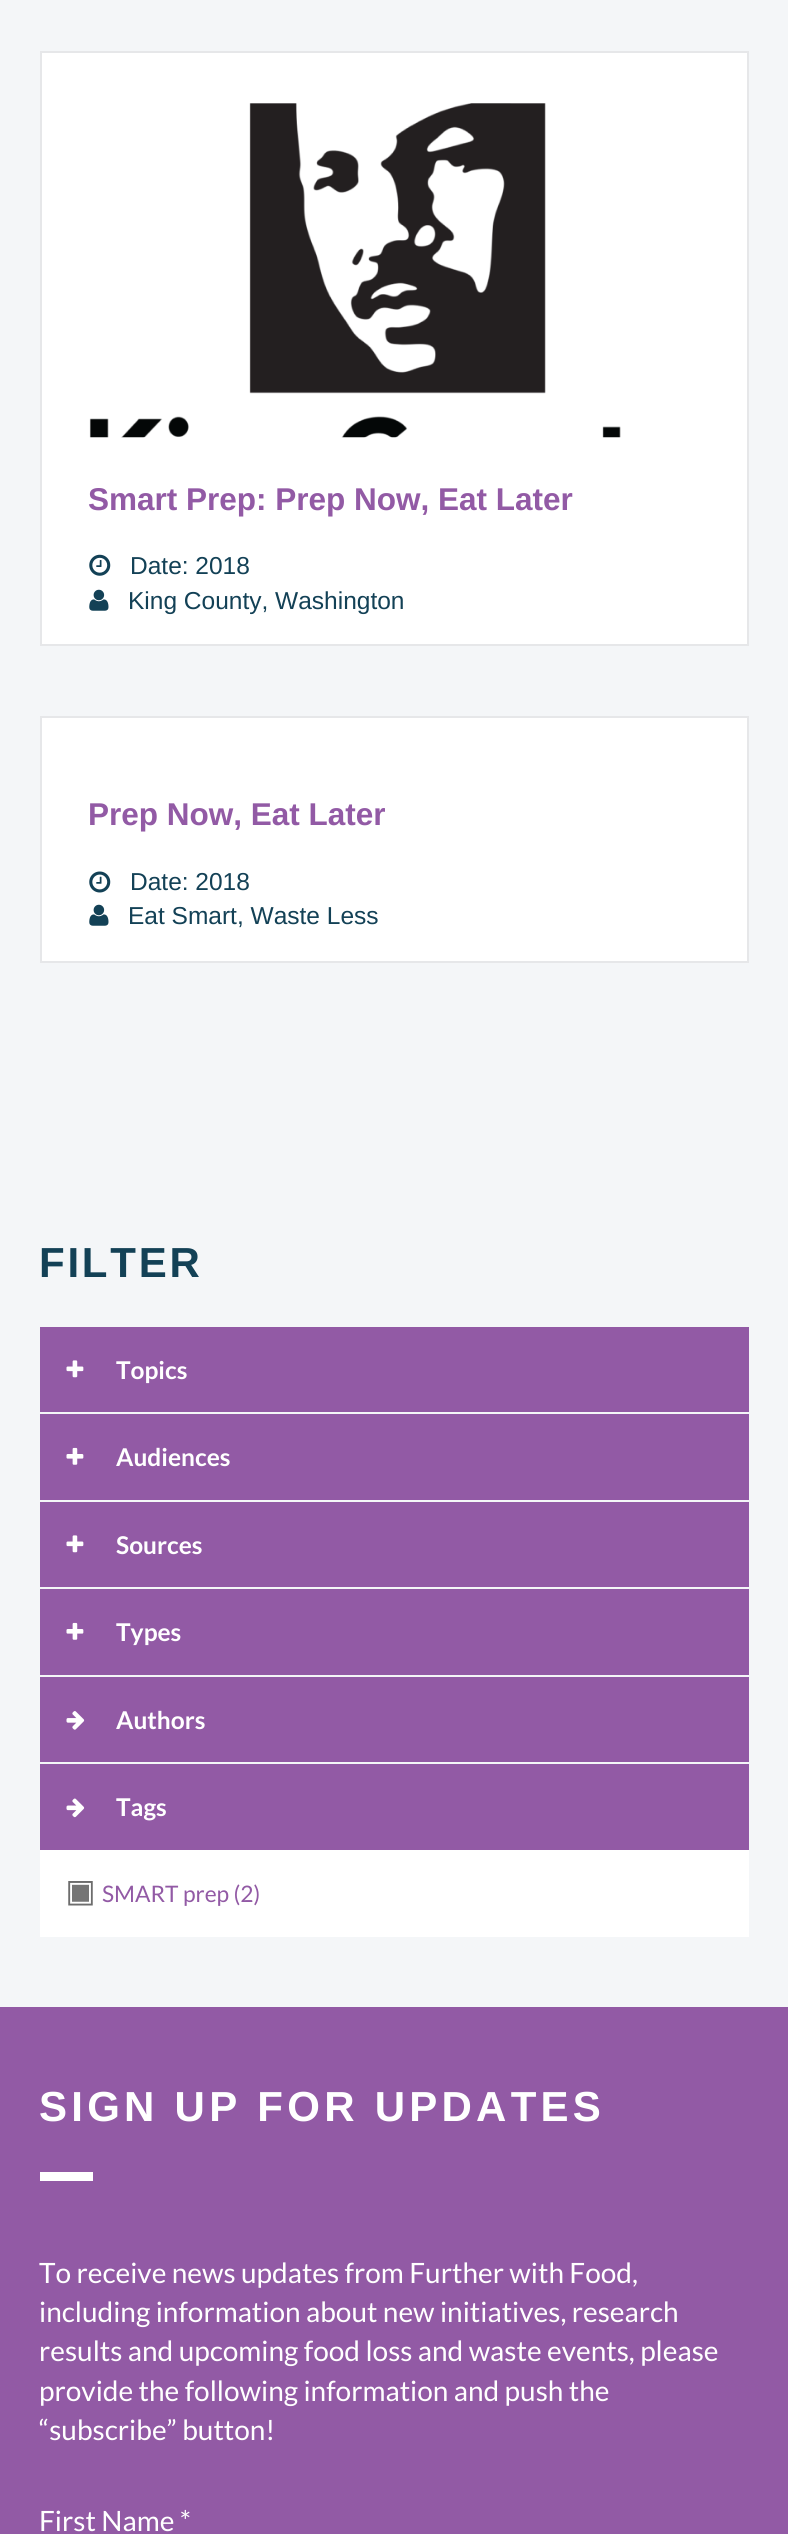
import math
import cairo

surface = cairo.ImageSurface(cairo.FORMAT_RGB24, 788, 2534)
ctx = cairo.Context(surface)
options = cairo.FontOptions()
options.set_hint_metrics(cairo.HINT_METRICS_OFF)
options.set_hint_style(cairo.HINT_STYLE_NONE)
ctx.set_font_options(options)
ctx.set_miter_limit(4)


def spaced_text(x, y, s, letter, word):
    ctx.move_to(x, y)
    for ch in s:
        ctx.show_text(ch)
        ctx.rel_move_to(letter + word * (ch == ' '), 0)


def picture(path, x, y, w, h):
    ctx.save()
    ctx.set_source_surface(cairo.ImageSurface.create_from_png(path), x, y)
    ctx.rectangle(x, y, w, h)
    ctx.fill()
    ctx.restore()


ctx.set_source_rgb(0.957, 0.961, 0.969)
ctx.paint()
ctx.set_source_rgb(1, 1, 1)
ctx.rectangle(41, 52, 707, 593)
ctx.fill_preserve()
ctx.set_source_rgb(0.902, 0.906, 0.914)
ctx.stroke()
picture("img1.png", 89, 103, 532, 335)
ctx.select_font_face("Arimo", cairo.FONT_SLANT_NORMAL, cairo.FONT_WEIGHT_BOLD)
ctx.set_font_size(31.5)
ctx.set_source_rgb(0.573, 0.353, 0.647)
ctx.move_to(88, 510)
ctx.show_text("Smart Prep: Prep Now, Eat Later")
picture("img2.png", 89, 554, 22, 22)
ctx.select_font_face("Arimo")
ctx.set_font_size(24.5)
ctx.set_source_rgb(0.075, 0.255, 0.337)
ctx.move_to(130, 574)
ctx.show_text("Date: 2018")
picture("img3.png", 89, 589, 20, 22)
ctx.move_to(128, 609)
ctx.show_text("King County, Washington")
ctx.set_source_rgb(1, 1, 1)
ctx.rectangle(41, 717, 707, 245)
ctx.fill_preserve()
ctx.set_source_rgb(0.902, 0.906, 0.914)
ctx.stroke()
ctx.select_font_face("Arimo", cairo.FONT_SLANT_NORMAL, cairo.FONT_WEIGHT_BOLD)
ctx.set_font_size(31.5)
ctx.set_source_rgb(0.573, 0.353, 0.647)
ctx.move_to(88, 825)
ctx.show_text("Prep Now, Eat Later")
picture("img4.png", 89, 871, 22, 22)
ctx.select_font_face("Arimo")
ctx.set_font_size(24.5)
ctx.set_source_rgb(0.075, 0.255, 0.337)
ctx.move_to(130, 890)
ctx.show_text("Date: 2018")
picture("img3.png", 89, 904, 20, 22)
ctx.move_to(128, 924)
ctx.show_text("Eat Smart, Waste Less")
ctx.select_font_face("Arimo", cairo.FONT_SLANT_NORMAL, cairo.FONT_WEIGHT_BOLD)
ctx.set_font_size(42)
spaced_text(39, 1277, "FILTER", 2.75, 0)
ctx.set_source_rgb(0.573, 0.353, 0.647)
ctx.rectangle(40, 1327, 709, 85)
ctx.fill()
picture("img5.png", 66, 1360, 18, 18)
ctx.select_font_face("Lato", cairo.FONT_SLANT_NORMAL, cairo.FONT_WEIGHT_BOLD)
ctx.set_font_size(24.5)
ctx.set_source_rgb(1, 1, 1)
ctx.move_to(116, 1379)
ctx.show_text("Topics")
ctx.set_source_rgb(0.573, 0.353, 0.647)
ctx.rectangle(40, 1414, 709, 86)
ctx.fill()
picture("img6.png", 66, 1447, 18, 18)
ctx.set_source_rgb(1, 1, 1)
ctx.move_to(116, 1466)
ctx.show_text("Audiences")
ctx.set_source_rgb(0.573, 0.353, 0.647)
ctx.rectangle(40, 1502, 709, 85)
ctx.fill()
picture("img5.png", 66, 1535, 18, 18)
ctx.set_source_rgb(1, 1, 1)
ctx.move_to(116, 1554)
ctx.show_text("Sources")
ctx.set_source_rgb(0.573, 0.353, 0.647)
ctx.rectangle(40, 1589, 709, 86)
ctx.fill()
picture("img6.png", 66, 1622, 18, 18)
ctx.set_source_rgb(1, 1, 1)
ctx.move_to(116, 1641)
ctx.show_text("Types")
ctx.set_source_rgb(0.573, 0.353, 0.647)
ctx.rectangle(40, 1677, 709, 85)
ctx.fill()
picture("img7.png", 66, 1711, 19, 19)
ctx.set_source_rgb(1, 1, 1)
ctx.move_to(116, 1729)
ctx.show_text("Authors")
ctx.set_source_rgb(0.573, 0.353, 0.647)
ctx.rectangle(40, 1764, 709, 86)
ctx.fill()
picture("img8.png", 66, 1798, 19, 20)
ctx.set_source_rgb(1, 1, 1)
ctx.move_to(116, 1816)
ctx.show_text("Tags")
ctx.rectangle(40, 1850, 709, 87)
ctx.fill()
picture("img9.png", 68, 1881, 25, 25)
ctx.select_font_face("Lato")
ctx.set_font_size(22.75)
ctx.set_source_rgb(0.573, 0.353, 0.647)
ctx.move_to(102, 1902)
ctx.show_text("SMART prep (2)")
ctx.rectangle(0, 2007, 788, 527)
ctx.fill()
ctx.select_font_face("Arimo", cairo.FONT_SLANT_NORMAL, cairo.FONT_WEIGHT_BOLD)
ctx.set_font_size(42)
ctx.set_source_rgb(1, 1, 1)
spaced_text(39, 2121, "SIGN UP FOR UPDATES", 4.25, 0)
ctx.rectangle(40, 2172, 53, 9)
ctx.fill()
ctx.select_font_face("Lato")
ctx.set_font_size(28)
ctx.move_to(39, 2283)
ctx.show_text("To receive news updates from Further with Food,")
ctx.move_to(39, 2322)
ctx.show_text("including information about new initiatives, research")
ctx.move_to(39, 2361)
ctx.show_text("results and upcoming food loss and waste events, please")
ctx.move_to(39, 2401)
ctx.show_text("provide the following information and push the")
ctx.move_to(39, 2440)
ctx.show_text("“subscribe” button!")
ctx.move_to(39, 2531)
ctx.show_text("First Name *")
surface.write_to_png("page.png")
